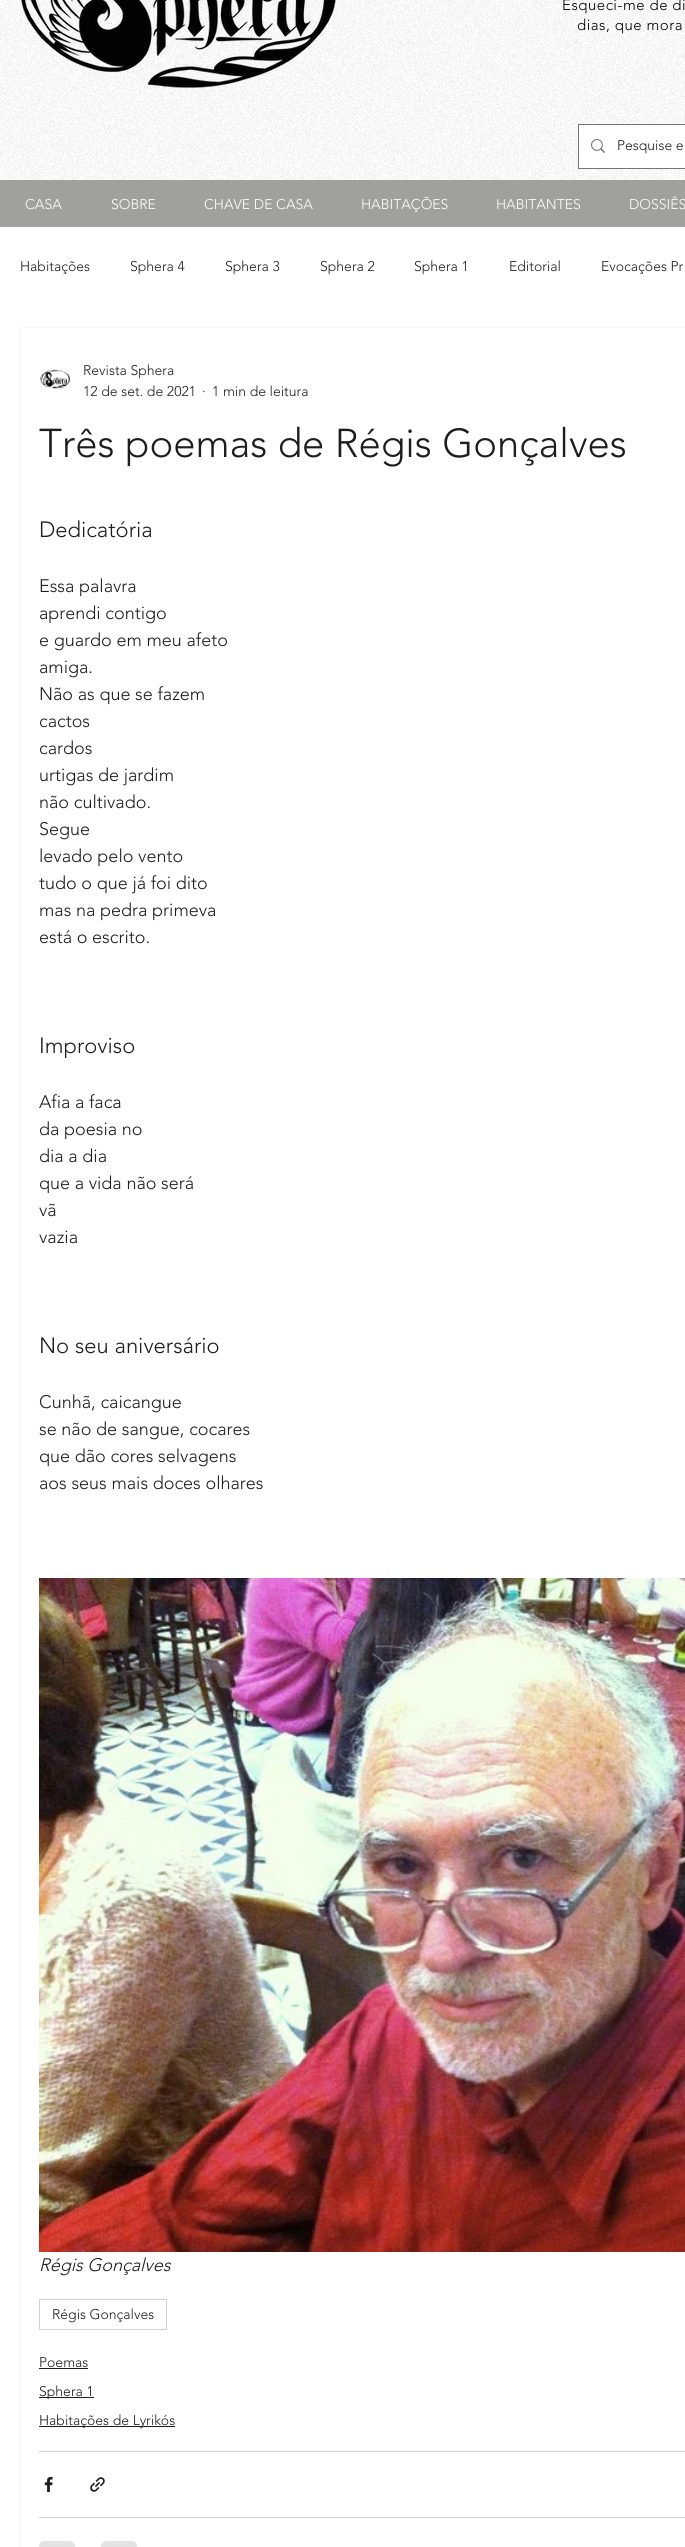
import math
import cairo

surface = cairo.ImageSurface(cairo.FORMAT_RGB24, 685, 2547)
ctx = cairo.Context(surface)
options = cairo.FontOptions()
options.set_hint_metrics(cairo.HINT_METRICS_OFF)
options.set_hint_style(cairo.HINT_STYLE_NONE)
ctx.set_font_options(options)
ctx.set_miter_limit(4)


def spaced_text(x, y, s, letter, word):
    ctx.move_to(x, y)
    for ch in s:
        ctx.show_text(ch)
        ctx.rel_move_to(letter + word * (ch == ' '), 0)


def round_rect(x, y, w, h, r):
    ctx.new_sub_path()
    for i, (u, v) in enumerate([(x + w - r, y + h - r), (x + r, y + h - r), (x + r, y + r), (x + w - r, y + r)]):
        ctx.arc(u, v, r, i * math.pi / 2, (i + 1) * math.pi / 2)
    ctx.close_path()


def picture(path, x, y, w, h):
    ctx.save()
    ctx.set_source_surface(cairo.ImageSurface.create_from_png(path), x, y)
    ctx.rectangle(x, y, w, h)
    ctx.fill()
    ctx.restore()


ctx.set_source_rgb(1, 1, 1)
ctx.paint()
picture("img1.png", 0, 0, 685, 180)
picture("img2.png", 21, 0, 315, 88)
ctx.select_font_face("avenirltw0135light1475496 Light")
ctx.set_font_size(15)
ctx.set_source_rgb(0, 0, 0)
spaced_text(562, 10, "Esqueci-me de di", 0.5, 0)
spaced_text(577, 30, "dias, que mora", 0.5, 0)
ctx.rectangle(578.5, 124.5, 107, 44)
ctx.set_source_rgba(0.114, 0.114, 0.122, 0.6)
ctx.set_line_width(1)
ctx.stroke()
ctx.set_source_rgb(1, 1, 1)
ctx.rectangle(579, 125, 106, 43)
ctx.fill()
picture("img3.png", 591, 139, 14, 14)
ctx.set_font_size(14)
ctx.set_source_rgb(0.114, 0.114, 0.122)
ctx.move_to(617, 150)
ctx.show_text("Pesquise e")
ctx.set_source_rgb(0.627, 0.627, 0.624)
ctx.rectangle(0, 180, 685, 47)
ctx.fill()
ctx.set_source_rgb(1, 1, 1)
ctx.move_to(25, 209)
ctx.show_text("CASA")
ctx.move_to(111, 209)
ctx.show_text("SOBRE")
ctx.move_to(204, 209)
ctx.show_text("CHAVE DE CASA")
ctx.move_to(361, 209)
ctx.show_text("HABITAÇÕES")
ctx.move_to(496, 209)
ctx.show_text("HABITANTES")
ctx.move_to(629, 209)
ctx.show_text("DOSSIÊS")
ctx.set_source_rgb(0.114, 0.114, 0.122)
ctx.move_to(20, 271)
ctx.show_text("Habitações")
ctx.move_to(130, 271)
ctx.show_text("Sphera 4")
ctx.move_to(225, 271)
ctx.show_text("Sphera 3")
ctx.move_to(320, 271)
ctx.show_text("Sphera 2")
ctx.move_to(414, 271)
ctx.show_text("Sphera 1")
ctx.move_to(509, 271)
ctx.show_text("Editorial")
ctx.move_to(601, 271)
ctx.show_text("Evocações Pr")
ctx.rectangle(20.5, 327.5, 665, 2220)
ctx.set_source_rgb(0.965, 0.965, 0.965)
ctx.stroke()
picture("img4.png", 40, 369, 31, 20)
ctx.set_source_rgb(0.114, 0.114, 0.122)
ctx.move_to(83, 375)
ctx.show_text("Revista Sphera")
ctx.move_to(83, 396)
ctx.show_text("12 de set. de 2021")
ctx.move_to(202, 396)
ctx.show_text("·")
ctx.move_to(212, 396)
ctx.show_text("1 min de leitura")
ctx.set_font_size(40)
ctx.move_to(39, 457)
ctx.show_text("Três poemas de Régis Gonçalves")
ctx.set_font_size(22)
ctx.move_to(39, 537)
ctx.show_text("Dedicatória")
ctx.set_font_size(18)
ctx.move_to(39, 592)
ctx.show_text("Essa palavra")
ctx.move_to(39, 619)
ctx.show_text("aprendi contigo")
ctx.move_to(39, 646)
ctx.show_text("e guardo em meu afeto")
ctx.move_to(39, 673)
ctx.show_text("amiga.")
ctx.move_to(39, 700)
ctx.show_text("Não as que se fazem")
ctx.move_to(39, 727)
ctx.show_text("cactos")
ctx.move_to(39, 754)
ctx.show_text("cardos")
ctx.move_to(39, 781)
ctx.show_text("urtigas de jardim")
ctx.move_to(39, 808)
ctx.show_text("não cultivado.")
ctx.move_to(39, 835)
ctx.show_text("Segue")
ctx.move_to(39, 862)
ctx.show_text("levado pelo vento")
ctx.move_to(39, 889)
ctx.show_text("tudo o que já foi dito")
ctx.move_to(39, 916)
ctx.show_text("mas na pedra primeva")
ctx.move_to(39, 943)
ctx.show_text("está o escrito.")
ctx.set_font_size(22)
ctx.move_to(39, 1053)
ctx.show_text("Improviso")
ctx.set_font_size(18)
ctx.move_to(39, 1108)
ctx.show_text("Afia a faca")
ctx.move_to(39, 1135)
ctx.show_text("da poesia no")
ctx.move_to(39, 1162)
ctx.show_text("dia a dia")
ctx.move_to(39, 1189)
ctx.show_text("que a vida não será")
ctx.move_to(39, 1216)
ctx.show_text("vã")
ctx.move_to(39, 1243)
ctx.show_text("vazia")
ctx.set_font_size(22)
ctx.move_to(39, 1353)
ctx.show_text("No seu aniversário")
ctx.set_font_size(18)
ctx.move_to(39, 1408)
ctx.show_text("Cunhã, caicangue")
ctx.move_to(39, 1435)
ctx.show_text("se não de sangue, cocares")
ctx.move_to(39, 1462)
ctx.show_text("que dão cores selvagens")
ctx.move_to(39, 1489)
ctx.show_text("aos seus mais doces olhares")
picture("img5.png", 39, 1578, 646, 674)
ctx.select_font_face("avenirltw0135light1475496 Light", cairo.FONT_SLANT_ITALIC)
ctx.move_to(39, 2271)
ctx.show_text("Régis Gonçalves")
ctx.rectangle(39.5, 2299.5, 127, 30)
ctx.set_source_rgb(0.824, 0.824, 0.824)
ctx.stroke()
ctx.select_font_face("avenirltw0135light1475496 Light")
ctx.set_font_size(14)
ctx.set_source_rgb(0.114, 0.114, 0.122)
ctx.move_to(52, 2319)
ctx.show_text("Régis Gonçalves")
ctx.move_to(39, 2367)
ctx.show_text("Poemas")
ctx.rectangle(39, 2368, 49, 1)
ctx.fill()
ctx.rectangle(39, 2397, 55, 1)
ctx.fill()
ctx.move_to(39, 2396)
ctx.show_text("Sphera 1")
ctx.rectangle(39, 2426, 136, 1)
ctx.fill()
ctx.move_to(39, 2425)
ctx.show_text("Habitações de Lyrikós")
ctx.set_source_rgb(0.824, 0.824, 0.824)
ctx.rectangle(39, 2451, 646, 1)
ctx.fill()
picture("img6.png", 44, 2477, 9, 15)
picture("img7.png", 90, 2477, 15, 15)
ctx.rectangle(39, 2517, 646, 1)
ctx.fill()
ctx.set_source_rgb(0.894, 0.894, 0.894)
round_rect(39, 2541, 36, 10, 5)
ctx.fill()
round_rect(101, 2541, 36, 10, 5)
ctx.fill()
surface.write_to_png("page.png")
